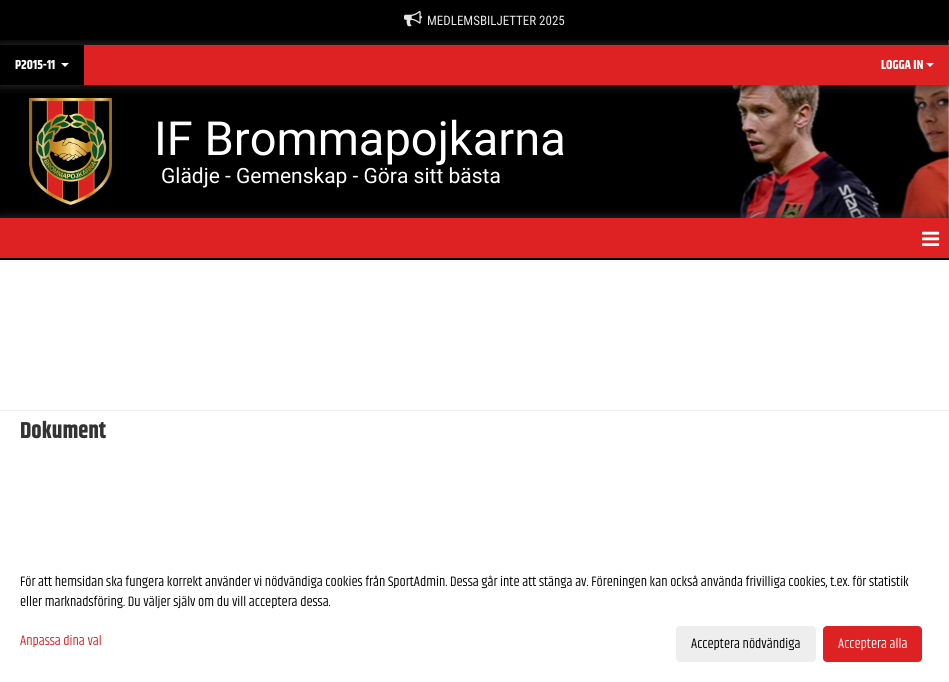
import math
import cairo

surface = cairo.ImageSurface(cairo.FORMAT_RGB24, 949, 682)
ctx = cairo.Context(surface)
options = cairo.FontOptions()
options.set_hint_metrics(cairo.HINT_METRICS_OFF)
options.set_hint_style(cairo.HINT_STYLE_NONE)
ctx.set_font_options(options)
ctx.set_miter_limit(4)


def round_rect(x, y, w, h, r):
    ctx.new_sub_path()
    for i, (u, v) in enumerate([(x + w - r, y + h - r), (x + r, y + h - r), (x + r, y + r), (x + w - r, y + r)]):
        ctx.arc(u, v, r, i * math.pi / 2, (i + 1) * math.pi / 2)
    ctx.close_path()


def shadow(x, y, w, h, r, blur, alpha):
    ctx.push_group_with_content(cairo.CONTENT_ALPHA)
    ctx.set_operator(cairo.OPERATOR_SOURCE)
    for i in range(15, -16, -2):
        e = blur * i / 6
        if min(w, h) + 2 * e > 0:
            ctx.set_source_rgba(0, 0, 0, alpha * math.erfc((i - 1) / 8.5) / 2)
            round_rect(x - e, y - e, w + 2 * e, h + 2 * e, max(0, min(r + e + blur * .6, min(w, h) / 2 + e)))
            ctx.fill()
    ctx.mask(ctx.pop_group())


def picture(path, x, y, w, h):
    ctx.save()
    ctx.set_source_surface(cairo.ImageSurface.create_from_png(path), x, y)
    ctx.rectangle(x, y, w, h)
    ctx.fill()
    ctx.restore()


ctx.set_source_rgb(1, 1, 1)
ctx.paint()
picture("img1.png", 0, 0, 949, 218)
ctx.set_source_rgb(0.2, 0.2, 0.2)
shadow(0, 45, 949, 40, 0, 5, 1)
ctx.set_source_rgba(0, 0, 0, 0.9)
ctx.rectangle(0, 0, 949, 40)
ctx.fill()
picture("img2.png", 404, 10, 18, 17)
ctx.select_font_face("Roboto Condensed")
ctx.set_font_size(13)
ctx.set_source_rgb(0.902, 0.902, 0.902)
ctx.move_to(427, 25)
ctx.show_text("MEDLEMSBILJETTER 2025")
ctx.set_source_rgb(0.871, 0.133, 0.141)
ctx.rectangle(84, 45, 865, 40)
ctx.fill()
ctx.set_source_rgb(0, 0, 0)
ctx.rectangle(0, 45, 84, 40)
ctx.fill()
ctx.select_font_face("Khand", cairo.FONT_SLANT_NORMAL, cairo.FONT_WEIGHT_BOLD)
ctx.set_source_rgb(1, 1, 1)
ctx.move_to(15, 69)
ctx.show_text("P2015-11")
ctx.new_path()
ctx.move_to(61, 63)
ctx.line_to(69, 63)
ctx.line_to(65, 67)
ctx.close_path()
ctx.fill()
ctx.move_to(881, 69)
ctx.show_text("LOGGA IN")
ctx.new_path()
ctx.move_to(926, 63)
ctx.line_to(934, 63)
ctx.line_to(930, 67)
ctx.close_path()
ctx.fill()
ctx.set_source_rgb(0.2, 0.2, 0.2)
shadow(0, 218, 949, 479, 0, 5, 1)
picture("img3.png", 29, 98, 83, 107)
ctx.select_font_face("Roboto")
ctx.set_font_size(47)
ctx.set_source_rgb(1, 1, 1)
ctx.move_to(154, 155)
ctx.show_text("IF Brommapojkarna")
ctx.set_font_size(21)
ctx.move_to(161, 183)
ctx.show_text("Glädje - Gemenskap - Göra sitt bästa")
ctx.rectangle(0, 260, 949, 422)
ctx.fill()
ctx.set_source_rgb(0.871, 0.133, 0.141)
ctx.rectangle(0, 218, 949, 40)
ctx.fill()
ctx.set_source_rgb(0, 0, 0)
ctx.rectangle(0, 258, 949, 2)
ctx.fill()
picture("img4.png", 922, 231, 18, 15)
ctx.set_source_rgb(0.933, 0.933, 0.933)
ctx.rectangle(0, 410, 949, 1)
ctx.fill()
ctx.select_font_face("Khand", cairo.FONT_SLANT_NORMAL, cairo.FONT_WEIGHT_BOLD)
ctx.set_font_size(23)
ctx.set_source_rgb(0.2, 0.2, 0.2)
ctx.move_to(20, 438)
ctx.show_text("Dokument")
ctx.select_font_face("Khand")
ctx.set_font_size(14)
ctx.set_source_rgb(0, 0, 0)
ctx.move_to(20, 586)
ctx.show_text("För att hemsidan ska fungera korrekt använder vi nödvändiga cookies från SportAdmin. Dessa går inte att stänga av. Föreningen kan också använda frivilliga cookies, t.ex. för statistik")
ctx.move_to(20, 606)
ctx.show_text("eller marknadsföring. Du väljer själv om du vill acceptera dessa.")
ctx.set_source_rgb(0.871, 0.133, 0.141)
ctx.move_to(20, 645)
ctx.show_text("Anpassa dina val")
ctx.set_source_rgb(0.933, 0.933, 0.933)
round_rect(676, 626, 140, 36, 4)
ctx.fill()
ctx.set_source_rgb(0, 0, 0)
ctx.move_to(691, 648)
ctx.show_text("Acceptera nödvändiga")
ctx.set_source_rgb(0.871, 0.133, 0.141)
round_rect(823, 626, 99, 36, 4)
ctx.fill()
ctx.set_source_rgb(1, 1, 1)
ctx.move_to(838, 648)
ctx.show_text("Acceptera alla")
surface.write_to_png("page.png")
